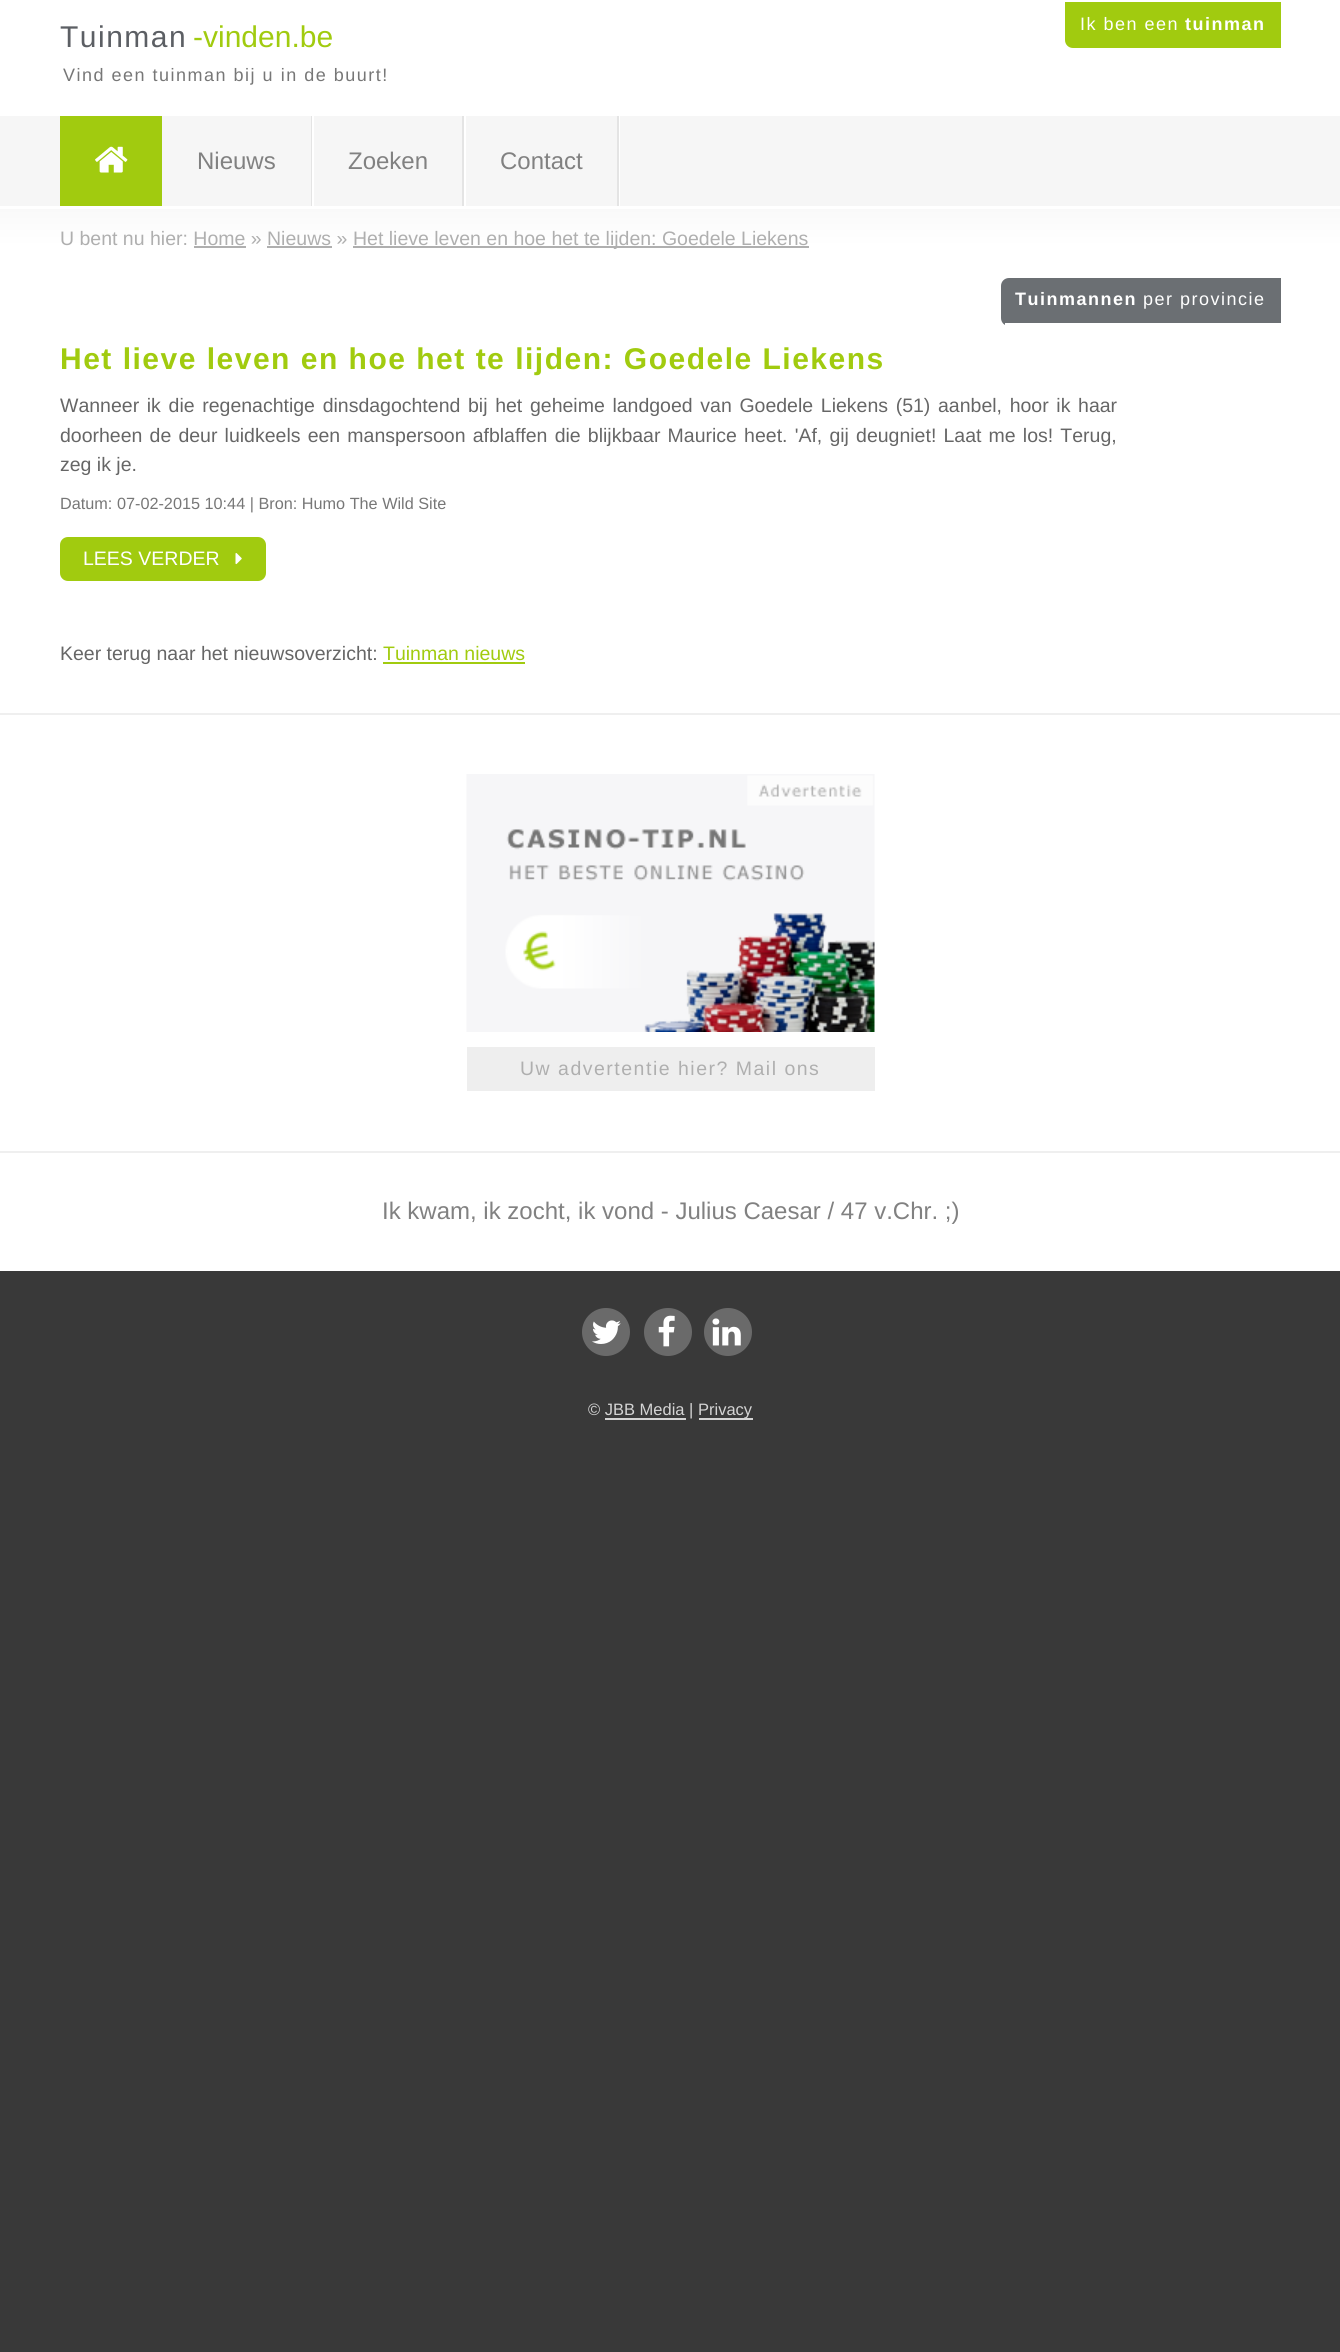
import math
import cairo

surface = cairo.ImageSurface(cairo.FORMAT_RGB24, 1340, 2352)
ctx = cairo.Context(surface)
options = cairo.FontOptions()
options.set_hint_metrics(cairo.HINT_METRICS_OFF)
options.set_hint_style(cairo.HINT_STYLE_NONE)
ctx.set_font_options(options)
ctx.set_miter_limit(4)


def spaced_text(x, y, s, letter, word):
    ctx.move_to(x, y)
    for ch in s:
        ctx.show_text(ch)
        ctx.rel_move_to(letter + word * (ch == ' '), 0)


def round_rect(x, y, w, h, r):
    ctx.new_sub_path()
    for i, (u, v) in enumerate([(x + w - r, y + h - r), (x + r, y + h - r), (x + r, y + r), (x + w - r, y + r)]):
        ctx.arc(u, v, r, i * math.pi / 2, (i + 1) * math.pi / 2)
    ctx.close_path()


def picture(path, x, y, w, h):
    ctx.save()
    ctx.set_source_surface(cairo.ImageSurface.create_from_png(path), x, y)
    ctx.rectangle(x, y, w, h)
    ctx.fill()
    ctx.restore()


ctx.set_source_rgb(0.224, 0.224, 0.224)
ctx.paint()
ctx.set_source_rgb(1, 1, 1)
ctx.rectangle(0, 0, 1340, 116)
ctx.fill()
ctx.set_source_rgb(0.631, 0.796, 0.059)
ctx.new_path()
ctx.move_to(1065, 0)
ctx.line_to(1281, 0)
ctx.line_to(1281, 48)
ctx.line_to(1073, 48)
ctx.curve_to(1068.5, 48, 1065, 44.5, 1065, 40)
ctx.close_path()
ctx.fill()
ctx.set_source_rgb(1, 1, 1)
ctx.rectangle(1065, 0, 216, 2)
ctx.fill()
ctx.select_font_face("Liberation Sans")
ctx.set_font_size(18)
spaced_text(1080, 30, "Ik ben een", 1.5, 0)
ctx.select_font_face("Liberation Sans", cairo.FONT_SLANT_NORMAL, cairo.FONT_WEIGHT_BOLD)
spaced_text(1185, 30, "tuinman", 1.5, 0)
ctx.select_font_face("Liberation Sans")
ctx.set_font_size(30)
ctx.set_source_rgb(0.361, 0.373, 0.392)
spaced_text(60, 47, "Tuinman", 1.5, 0)
ctx.set_source_rgb(0.631, 0.796, 0.059)
ctx.move_to(193, 47)
ctx.show_text("-vinden.be")
ctx.set_font_size(18)
ctx.set_source_rgb(0.467, 0.467, 0.467)
spaced_text(63, 81, "Vind een tuinman bij u in de buurt!", 1.5, 0)
ctx.set_source_rgb(0.961, 0.961, 0.961)
ctx.rectangle(0, 116, 1340, 90)
ctx.fill()
ctx.set_source_rgb(1, 1, 1)
ctx.rectangle(619, 116, 1, 90)
ctx.fill()
ctx.set_source_rgb(0.631, 0.796, 0.059)
ctx.rectangle(60, 116, 102, 90)
ctx.fill()
picture("img1.png", 95, 146, 33, 27)
ctx.set_source_rgb(0.894, 0.894, 0.894)
ctx.rectangle(311, 116, 1, 90)
ctx.fill()
ctx.set_font_size(24)
ctx.set_source_rgb(0.506, 0.506, 0.506)
ctx.move_to(197, 169)
ctx.show_text("Nieuws")
ctx.set_source_rgb(0.894, 0.894, 0.894)
ctx.rectangle(462, 116, 2, 90)
ctx.fill()
ctx.set_source_rgb(1, 1, 1)
ctx.rectangle(312, 116, 2, 90)
ctx.fill()
ctx.set_source_rgb(0.506, 0.506, 0.506)
ctx.move_to(348, 169)
ctx.show_text("Zoeken")
ctx.set_source_rgb(0.894, 0.894, 0.894)
ctx.rectangle(617, 116, 2, 90)
ctx.fill()
ctx.set_source_rgb(1, 1, 1)
ctx.rectangle(464, 116, 2, 90)
ctx.fill()
ctx.set_source_rgb(0.506, 0.506, 0.506)
ctx.move_to(500, 169)
ctx.show_text("Contact")
gradient = cairo.LinearGradient(671, 147, 671, 209)
gradient.add_color_stop_rgba(0, 0.976, 0.976, 0.976, 1)
gradient.add_color_stop_rgba(0.61, 1, 1, 1, 1)
ctx.set_source(gradient)
ctx.rectangle(0, 206, 1340, 3)
ctx.fill()
gradient = cairo.LinearGradient(671, 208, 671, 270)
gradient.add_color_stop_rgba(0, 0.976, 0.976, 0.976, 1)
gradient.add_color_stop_rgba(0.61, 1, 1, 1, 1)
ctx.set_source(gradient)
ctx.rectangle(0, 209, 1340, 61)
ctx.fill()
ctx.set_font_size(19.5)
ctx.set_source_rgb(0.686, 0.686, 0.686)
ctx.move_to(60, 245)
ctx.show_text("U bent nu hier: Home » Nieuws »")
ctx.rectangle(353, 246, 456, 2)
ctx.fill()
ctx.move_to(353, 245)
ctx.show_text("Het lieve leven en hoe het te lijden: Goedele Liekens")
ctx.rectangle(194, 246, 52, 2)
ctx.fill()
ctx.rectangle(267, 246, 65, 2)
ctx.fill()
ctx.set_source_rgb(1, 1, 1)
ctx.rectangle(0, 270, 1340, 443)
ctx.fill()
ctx.set_source_rgb(0.42, 0.435, 0.451)
ctx.new_path()
ctx.move_to(1009, 278)
ctx.line_to(1281, 278)
ctx.line_to(1281, 326)
ctx.line_to(1009, 326)
ctx.curve_to(1004.5, 326, 1001, 322.5, 1001, 318)
ctx.line_to(1001, 286)
ctx.curve_to(1001, 281.5, 1004.5, 278, 1009, 278)
ctx.close_path()
ctx.fill()
ctx.set_source_rgb(1, 1, 1)
ctx.rectangle(1005, 323, 276, 3)
ctx.fill()
ctx.select_font_face("Liberation Sans", cairo.FONT_SLANT_NORMAL, cairo.FONT_WEIGHT_BOLD)
ctx.set_font_size(18)
spaced_text(1015, 305, "Tuinmannen", 1.5, 0)
ctx.select_font_face("Liberation Sans")
spaced_text(1143, 305, "per provincie", 1.5, 0)
ctx.select_font_face("Liberation Sans", cairo.FONT_SLANT_NORMAL, cairo.FONT_WEIGHT_BOLD)
ctx.set_font_size(30)
ctx.set_source_rgb(0.631, 0.796, 0.059)
spaced_text(60, 369, "Het lieve leven en hoe het te lijden: Goedele Liekens", 1.5, 0)
ctx.select_font_face("Liberation Sans")
ctx.set_font_size(19.5)
ctx.set_source_rgb(0.4, 0.4, 0.4)
spaced_text(60, 412, "Wanneer ik die regenachtige dinsdagochtend bij het geheime landgoed van Goedele Liekens (51) aanbel, hoor ik haar", 0, 2.25)
spaced_text(60, 442, "doorheen de deur luidkeels een manspersoon afblaffen die blijkbaar Maurice heet. 'Af, gij deugniet! Laat me los! Terug,", 0, 1.75)
ctx.move_to(60, 471)
ctx.show_text("zeg ik je.")
ctx.set_font_size(16.25)
ctx.set_source_rgb(0.467, 0.467, 0.467)
ctx.move_to(60, 509)
ctx.show_text("Datum: 07-02-2015 10:44 | Bron: Humo The Wild Site")
ctx.set_source_rgb(0.631, 0.796, 0.059)
round_rect(60, 537, 206, 44, 8)
ctx.fill()
ctx.set_font_size(19.5)
ctx.set_source_rgb(1, 1, 1)
ctx.move_to(83, 565)
ctx.show_text("LEES VERDER")
picture("img2.png", 235, 553, 7, 12)
ctx.set_source_rgb(0.4, 0.4, 0.4)
ctx.move_to(60, 660)
ctx.show_text("Keer terug naar het nieuwsoverzicht:")
ctx.set_source_rgb(0.631, 0.796, 0.059)
ctx.move_to(383, 660)
ctx.show_text("Tuinman nieuws")
ctx.rectangle(383, 662, 142, 2)
ctx.fill()
ctx.set_source_rgb(1, 1, 1)
ctx.rectangle(0, 715, 1340, 436)
ctx.fill()
ctx.set_source_rgb(0.937, 0.937, 0.937)
ctx.rectangle(0, 713, 1340, 2)
ctx.fill()
picture("img3.png", 466, 774, 409, 258)
ctx.set_source_rgb(0.933, 0.933, 0.933)
ctx.rectangle(467, 1047, 408, 44)
ctx.fill()
ctx.set_source_rgb(0.686, 0.686, 0.686)
spaced_text(520, 1075, "Uw advertentie hier? Mail ons", 1.5, 0)
ctx.set_source_rgb(1, 1, 1)
ctx.rectangle(0, 1153, 1340, 118)
ctx.fill()
ctx.set_source_rgb(0.937, 0.937, 0.937)
ctx.rectangle(0, 1151, 1340, 2)
ctx.fill()
ctx.set_font_size(24)
ctx.set_source_rgb(0.506, 0.506, 0.506)
ctx.move_to(382, 1219)
ctx.show_text("Ik kwam, ik zocht, ik vond - Julius Caesar / 47 v.Chr. ;)")
ctx.set_source_rgb(0.416, 0.416, 0.416)
ctx.new_path()
ctx.arc(606, 1332, 24, 0, 2 * math.pi)
ctx.fill()
picture("img4.png", 592, 1320, 29, 24)
ctx.arc(668, 1332, 24, 0, 2 * math.pi)
ctx.fill()
picture("img5.png", 658, 1315, 17, 32)
ctx.arc(728, 1332, 24, 0, 2 * math.pi)
ctx.fill()
picture("img6.png", 712, 1318, 29, 28)
ctx.set_font_size(16.5)
ctx.set_source_rgb(0.831, 0.831, 0.831)
ctx.move_to(588, 1415)
ctx.show_text("© JBB Media |")
ctx.rectangle(699, 1418, 54, 2)
ctx.fill()
ctx.move_to(698, 1415)
ctx.show_text("Privacy")
ctx.rectangle(605, 1418, 81, 2)
ctx.fill()
surface.write_to_png("page.png")
